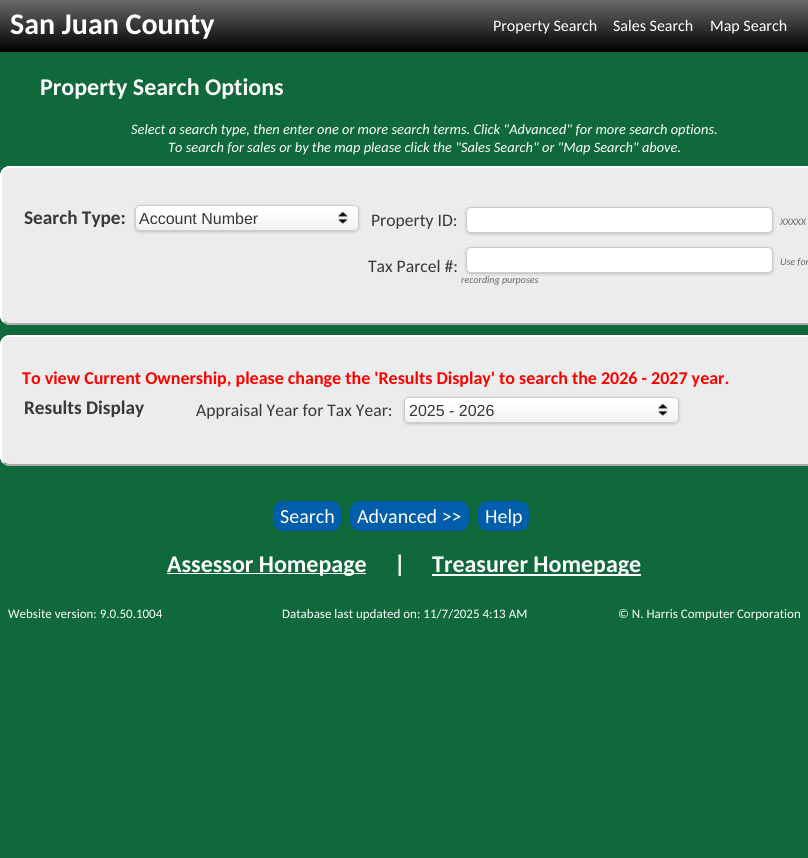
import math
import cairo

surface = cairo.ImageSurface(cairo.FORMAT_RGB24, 808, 858)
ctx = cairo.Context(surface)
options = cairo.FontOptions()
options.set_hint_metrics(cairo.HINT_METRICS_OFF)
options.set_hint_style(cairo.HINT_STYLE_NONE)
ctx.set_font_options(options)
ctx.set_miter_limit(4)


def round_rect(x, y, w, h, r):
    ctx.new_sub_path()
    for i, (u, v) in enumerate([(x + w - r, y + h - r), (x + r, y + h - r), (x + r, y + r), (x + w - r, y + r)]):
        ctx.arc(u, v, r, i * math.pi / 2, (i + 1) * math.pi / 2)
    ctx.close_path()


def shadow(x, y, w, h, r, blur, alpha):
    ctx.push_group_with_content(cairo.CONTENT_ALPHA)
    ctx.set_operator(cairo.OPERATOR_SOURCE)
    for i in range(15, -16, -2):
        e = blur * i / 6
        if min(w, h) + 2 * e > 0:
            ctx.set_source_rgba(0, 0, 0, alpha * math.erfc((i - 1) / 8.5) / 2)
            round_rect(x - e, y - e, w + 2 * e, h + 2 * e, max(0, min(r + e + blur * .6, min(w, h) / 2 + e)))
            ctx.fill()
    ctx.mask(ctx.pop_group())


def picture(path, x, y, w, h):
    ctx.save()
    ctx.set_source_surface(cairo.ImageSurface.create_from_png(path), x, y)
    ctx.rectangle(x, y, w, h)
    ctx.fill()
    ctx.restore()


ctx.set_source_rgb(0.063, 0.412, 0.227)
ctx.paint()
gradient = cairo.LinearGradient(404, 0, 404, 52)
gradient.add_color_stop_rgba(0, 0.412, 0.412, 0.412, 1)
gradient.add_color_stop_rgba(1, 0, 0, 0, 1)
ctx.set_source(gradient)
ctx.rectangle(0, 0, 808, 52)
ctx.fill()
ctx.select_font_face("Carlito", cairo.FONT_SLANT_NORMAL, cairo.FONT_WEIGHT_BOLD)
ctx.set_font_size(30)
ctx.set_source_rgb(1, 1, 1)
ctx.move_to(10, 34)
ctx.show_text("San Juan County")
ctx.select_font_face("Carlito")
ctx.set_font_size(16)
ctx.move_to(493, 31)
ctx.show_text("Property Search")
ctx.move_to(613, 31)
ctx.show_text("Sales Search")
ctx.move_to(710, 31)
ctx.show_text("Map Search")
ctx.select_font_face("Carlito", cairo.FONT_SLANT_NORMAL, cairo.FONT_WEIGHT_BOLD)
ctx.set_font_size(24)
ctx.move_to(40, 95)
ctx.show_text("Property Search Options")
ctx.select_font_face("Carlito", cairo.FONT_SLANT_ITALIC)
ctx.set_font_size(14.4)
ctx.move_to(131, 134)
ctx.show_text("Select a search type, then enter one or more search terms. Click \"Advanced\" for more search options.")
ctx.move_to(168, 152)
ctx.show_text("To search for sales or by the map please click the \"Sales Search\" or \"Map Search\" above.")
ctx.set_source_rgb(0.925, 0.925, 0.925)
round_rect(0, 166, 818, 159, 10)
ctx.fill()
ctx.new_path()
ctx.move_to(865.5, 169.5)
ctx.curve_to(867, 171.5, 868, 173.5, 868, 176)
ctx.line_to(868, 315)
ctx.curve_to(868, 317.5, 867, 319.5, 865.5, 321.5)
ctx.curve_to(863.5, 323, 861.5, 324, 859, 324)
ctx.line_to(10, 324)
ctx.curve_to(7.5, 324, 5.5, 323, 3.5, 321.5)
ctx.set_source_rgb(0.667, 0.667, 0.667)
ctx.stroke()
ctx.new_path()
ctx.move_to(3.5, 321.5)
ctx.curve_to(2, 319.5, 1, 317.5, 1, 315)
ctx.line_to(1, 176)
ctx.curve_to(1, 173.5, 2, 171.5, 3.5, 169.5)
ctx.curve_to(5.5, 168, 7.5, 167, 10, 167)
ctx.line_to(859, 167)
ctx.curve_to(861.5, 167, 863.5, 168, 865.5, 169.5)
ctx.set_source_rgb(1, 1, 1)
ctx.stroke()
ctx.select_font_face("Carlito", cairo.FONT_SLANT_NORMAL, cairo.FONT_WEIGHT_BOLD)
ctx.set_font_size(19.25)
ctx.set_source_rgb(0.22, 0.22, 0.22)
ctx.move_to(24, 224)
ctx.show_text("Search Type:")
ctx.set_source_rgb(0, 0, 0)
shadow(135, 206, 224, 26, 5, 1.5, 0.2)
picture("img1.png", 135, 205, 223, 26)
round_rect(135.5, 205.5, 223, 25, 4.5)
ctx.set_source_rgb(0.8, 0.8, 0.8)
ctx.set_line_width(1)
ctx.stroke()
ctx.select_font_face("Liberation Sans")
ctx.set_font_size(16)
ctx.set_source_rgb(0.22, 0.22, 0.22)
ctx.move_to(139, 224)
ctx.show_text("Account Number")
ctx.select_font_face("Carlito")
ctx.set_font_size(17.6)
ctx.move_to(371, 226)
ctx.show_text("Property ID:")
ctx.set_source_rgb(0, 0, 0)
shadow(466, 208, 307, 26, 5, 1.5, 0.2)
ctx.set_source_rgb(1, 1, 1)
round_rect(466.5, 207.5, 306, 25, 4.5)
ctx.fill_preserve()
ctx.set_source_rgb(0.8, 0.8, 0.8)
ctx.stroke()
ctx.select_font_face("Carlito", cairo.FONT_SLANT_ITALIC)
ctx.set_font_size(10)
ctx.set_source_rgb(0.4, 0.4, 0.4)
ctx.move_to(780, 225)
ctx.show_text("XXXXX")
ctx.select_font_face("Carlito")
ctx.set_font_size(17.6)
ctx.set_source_rgb(0.22, 0.22, 0.22)
ctx.move_to(368, 272)
ctx.show_text("Tax Parcel #:")
ctx.set_source_rgb(0, 0, 0)
shadow(466, 248, 307, 26, 5, 1.5, 0.2)
ctx.set_source_rgb(1, 1, 1)
round_rect(466.5, 247.5, 306, 25, 4.5)
ctx.fill_preserve()
ctx.set_source_rgb(0.8, 0.8, 0.8)
ctx.stroke()
ctx.select_font_face("Carlito", cairo.FONT_SLANT_ITALIC)
ctx.set_font_size(10)
ctx.set_source_rgb(0.4, 0.4, 0.4)
ctx.move_to(780, 265)
ctx.show_text("Use for")
ctx.move_to(461, 283)
ctx.show_text("recording purposes")
ctx.set_source_rgb(0.925, 0.925, 0.925)
round_rect(0, 335, 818, 131, 10)
ctx.fill()
ctx.new_path()
ctx.move_to(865.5, 338.5)
ctx.curve_to(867, 340.5, 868, 342.5, 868, 345)
ctx.line_to(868, 456)
ctx.curve_to(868, 458.5, 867, 460.5, 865.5, 462.5)
ctx.curve_to(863.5, 464, 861.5, 465, 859, 465)
ctx.line_to(10, 465)
ctx.curve_to(7.5, 465, 5.5, 464, 3.5, 462.5)
ctx.set_source_rgb(0.667, 0.667, 0.667)
ctx.set_line_width(2)
ctx.stroke()
ctx.new_path()
ctx.move_to(3.5, 462.5)
ctx.curve_to(2, 460.5, 1, 458.5, 1, 456)
ctx.line_to(1, 345)
ctx.curve_to(1, 342.5, 2, 340.5, 3.5, 338.5)
ctx.curve_to(5.5, 337, 7.5, 336, 10, 336)
ctx.line_to(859, 336)
ctx.curve_to(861.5, 336, 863.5, 337, 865.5, 338.5)
ctx.set_source_rgb(1, 1, 1)
ctx.stroke()
ctx.select_font_face("Carlito", cairo.FONT_SLANT_NORMAL, cairo.FONT_WEIGHT_BOLD)
ctx.set_font_size(18)
ctx.set_source_rgb(1, 0, 0)
ctx.move_to(22, 384)
ctx.show_text("To view Current Ownership, please change the 'Results Display' to search the 2026 - 2027 year.")
ctx.set_font_size(19.25)
ctx.set_source_rgb(0.22, 0.22, 0.22)
ctx.move_to(24, 414)
ctx.show_text("Results Display")
ctx.select_font_face("Carlito")
ctx.set_font_size(17.6)
ctx.move_to(196, 416)
ctx.show_text("Appraisal Year for Tax Year:")
ctx.set_source_rgb(0, 0, 0)
shadow(404, 398, 275, 26, 5, 1.5, 0.2)
picture("img2.png", 404, 397, 274, 26)
round_rect(404.5, 397.5, 274, 25, 4.5)
ctx.set_source_rgb(0.8, 0.8, 0.8)
ctx.set_line_width(1)
ctx.stroke()
ctx.select_font_face("Liberation Sans")
ctx.set_font_size(16)
ctx.set_source_rgb(0.22, 0.22, 0.22)
ctx.move_to(409, 416)
ctx.show_text("2025 - 2026")
ctx.set_source_rgb(0, 0.369, 0.671)
round_rect(273.5, 501.5, 67, 29, 9.5)
ctx.fill_preserve()
ctx.stroke()
ctx.select_font_face("Carlito")
ctx.set_font_size(20)
ctx.set_source_rgb(1, 1, 1)
ctx.move_to(280, 523)
ctx.show_text("Search")
ctx.set_source_rgb(0, 0.369, 0.671)
round_rect(350.5, 501.5, 118, 29, 9.5)
ctx.fill_preserve()
ctx.stroke()
ctx.set_source_rgb(1, 1, 1)
ctx.move_to(357, 523)
ctx.show_text("Advanced >>")
ctx.set_source_rgb(0, 0.369, 0.671)
round_rect(478.5, 501.5, 50, 29, 9.5)
ctx.fill_preserve()
ctx.stroke()
ctx.set_source_rgb(1, 1, 1)
ctx.move_to(485, 523)
ctx.show_text("Help")
ctx.rectangle(167, 573, 199, 1)
ctx.fill()
ctx.select_font_face("Carlito", cairo.FONT_SLANT_NORMAL, cairo.FONT_WEIGHT_BOLD)
ctx.set_font_size(24)
ctx.move_to(167, 572)
ctx.show_text("Assessor Homepage")
ctx.move_to(394, 572)
ctx.show_text("|")
ctx.rectangle(432, 574, 209, 2)
ctx.fill()
ctx.move_to(432, 572)
ctx.show_text("Treasurer Homepage")
ctx.select_font_face("Carlito")
ctx.set_font_size(13)
ctx.move_to(8, 618)
ctx.show_text("Website version: 9.0.50.1004")
ctx.move_to(282, 618)
ctx.show_text("Database last updated on: 11/7/2025 4:13 AM")
ctx.move_to(618, 618)
ctx.show_text("© N. Harris Computer Corporation")
surface.write_to_png("page.png")
